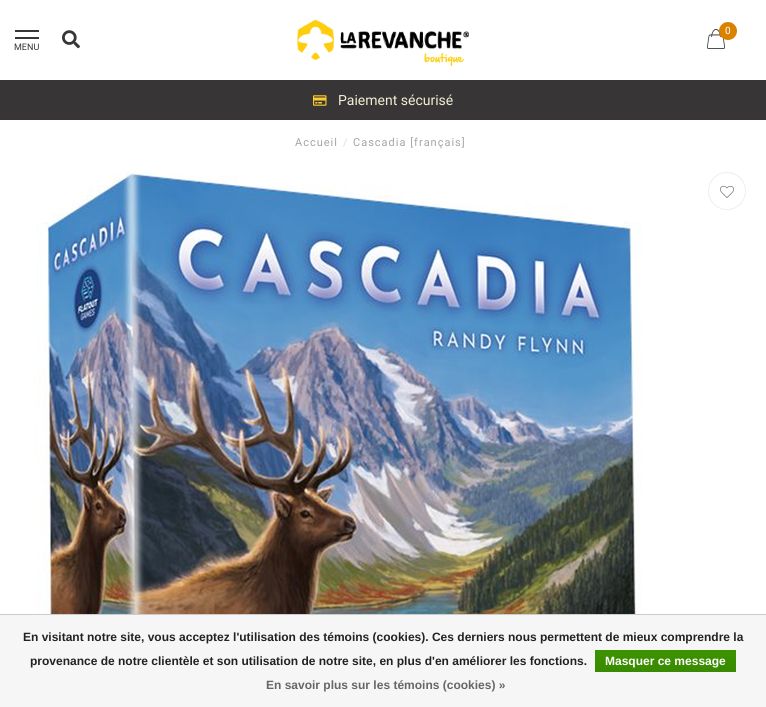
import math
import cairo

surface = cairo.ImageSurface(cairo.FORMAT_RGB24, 766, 707)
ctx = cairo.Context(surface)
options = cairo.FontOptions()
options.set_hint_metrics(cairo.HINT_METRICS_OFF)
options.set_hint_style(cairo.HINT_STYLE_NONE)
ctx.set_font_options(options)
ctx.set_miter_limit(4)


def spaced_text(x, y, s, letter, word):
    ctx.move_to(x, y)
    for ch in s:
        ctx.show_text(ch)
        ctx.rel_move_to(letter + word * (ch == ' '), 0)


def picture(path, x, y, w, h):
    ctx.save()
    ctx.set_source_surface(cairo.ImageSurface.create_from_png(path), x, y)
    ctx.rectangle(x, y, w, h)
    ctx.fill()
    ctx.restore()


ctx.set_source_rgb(1, 1, 1)
ctx.paint()
picture("img1.png", 297, 19, 172, 48)
picture("img2.png", 707, 29, 18, 20)
ctx.set_source_rgb(0.855, 0.51, 0)
ctx.arc(728, 31, 9, 0, 2 * math.pi)
ctx.fill()
ctx.select_font_face("Roboto")
ctx.set_font_size(10)
ctx.set_source_rgb(1, 1, 1)
ctx.move_to(725, 34)
ctx.show_text("0")
ctx.set_source_rgb(0.216, 0.208, 0.208)
ctx.rectangle(15, 30, 24, 2)
ctx.fill()
ctx.rectangle(15, 37, 24, 2)
ctx.fill()
ctx.set_font_size(9)
ctx.move_to(14, 50)
ctx.show_text("MENU")
picture("img3.png", 62, 30, 18, 19)
ctx.rectangle(0, 80, 766, 40)
ctx.fill()
picture("img4.png", 313, 95, 14, 11)
ctx.set_font_size(14)
ctx.set_source_rgb(0.945, 0.929, 0.839)
ctx.move_to(338, 105)
ctx.show_text("Paiement sécurisé")
ctx.set_font_size(11)
ctx.set_source_rgb(0.647, 0.647, 0.647)
spaced_text(295, 146, "Accueil", 1, 0)
ctx.set_source_rgb(0.867, 0.867, 0.867)
spaced_text(343, 146, "/", 1, 0)
ctx.set_source_rgb(0.647, 0.647, 0.647)
spaced_text(353, 146, "Cascadia [français]", 1, 0)
picture("img5.png", 34, 171, 608, 443)
ctx.arc(727, 191, 18.5, 0, 2 * math.pi)
ctx.set_source_rgb(0.933, 0.933, 0.933)
ctx.set_line_width(1)
ctx.stroke()
picture("img6.png", 720, 185, 14, 13)
ctx.set_source_rgb(0.961, 0.961, 0.961)
ctx.rectangle(0, 615, 766, 92)
ctx.fill()
ctx.set_source_rgb(0.8, 0.8, 0.8)
ctx.rectangle(0, 614, 766, 1)
ctx.fill()
ctx.select_font_face("Liberation Sans", cairo.FONT_SLANT_NORMAL, cairo.FONT_WEIGHT_BOLD)
ctx.set_font_size(12)
ctx.set_source_rgb(0.133, 0.133, 0.133)
ctx.move_to(23, 641)
ctx.show_text("En visitant notre site, vous acceptez l'utilisation des témoins (cookies). Ces derniers nous permettent de mieux comprendre la")
ctx.move_to(30, 665)
ctx.show_text("provenance de notre clientèle et son utilisation de notre site, en plus d'en améliorer les fonctions.")
gradient = cairo.LinearGradient(666, 650, 666, 672)
gradient.add_color_stop_rgba(0, 0.235, 0.576, 0, 1)
gradient.add_color_stop_rgba(1, 0.224, 0.541, 0, 1)
ctx.set_source(gradient)
ctx.rectangle(595, 650, 141, 22)
ctx.fill()
ctx.set_source_rgb(1, 1, 1)
ctx.move_to(605, 665)
ctx.show_text("Masquer ce message")
ctx.set_source_rgb(0.4, 0.4, 0.4)
ctx.move_to(266, 689)
ctx.show_text("En savoir plus sur les témoins (cookies) »")
surface.write_to_png("page.png")
